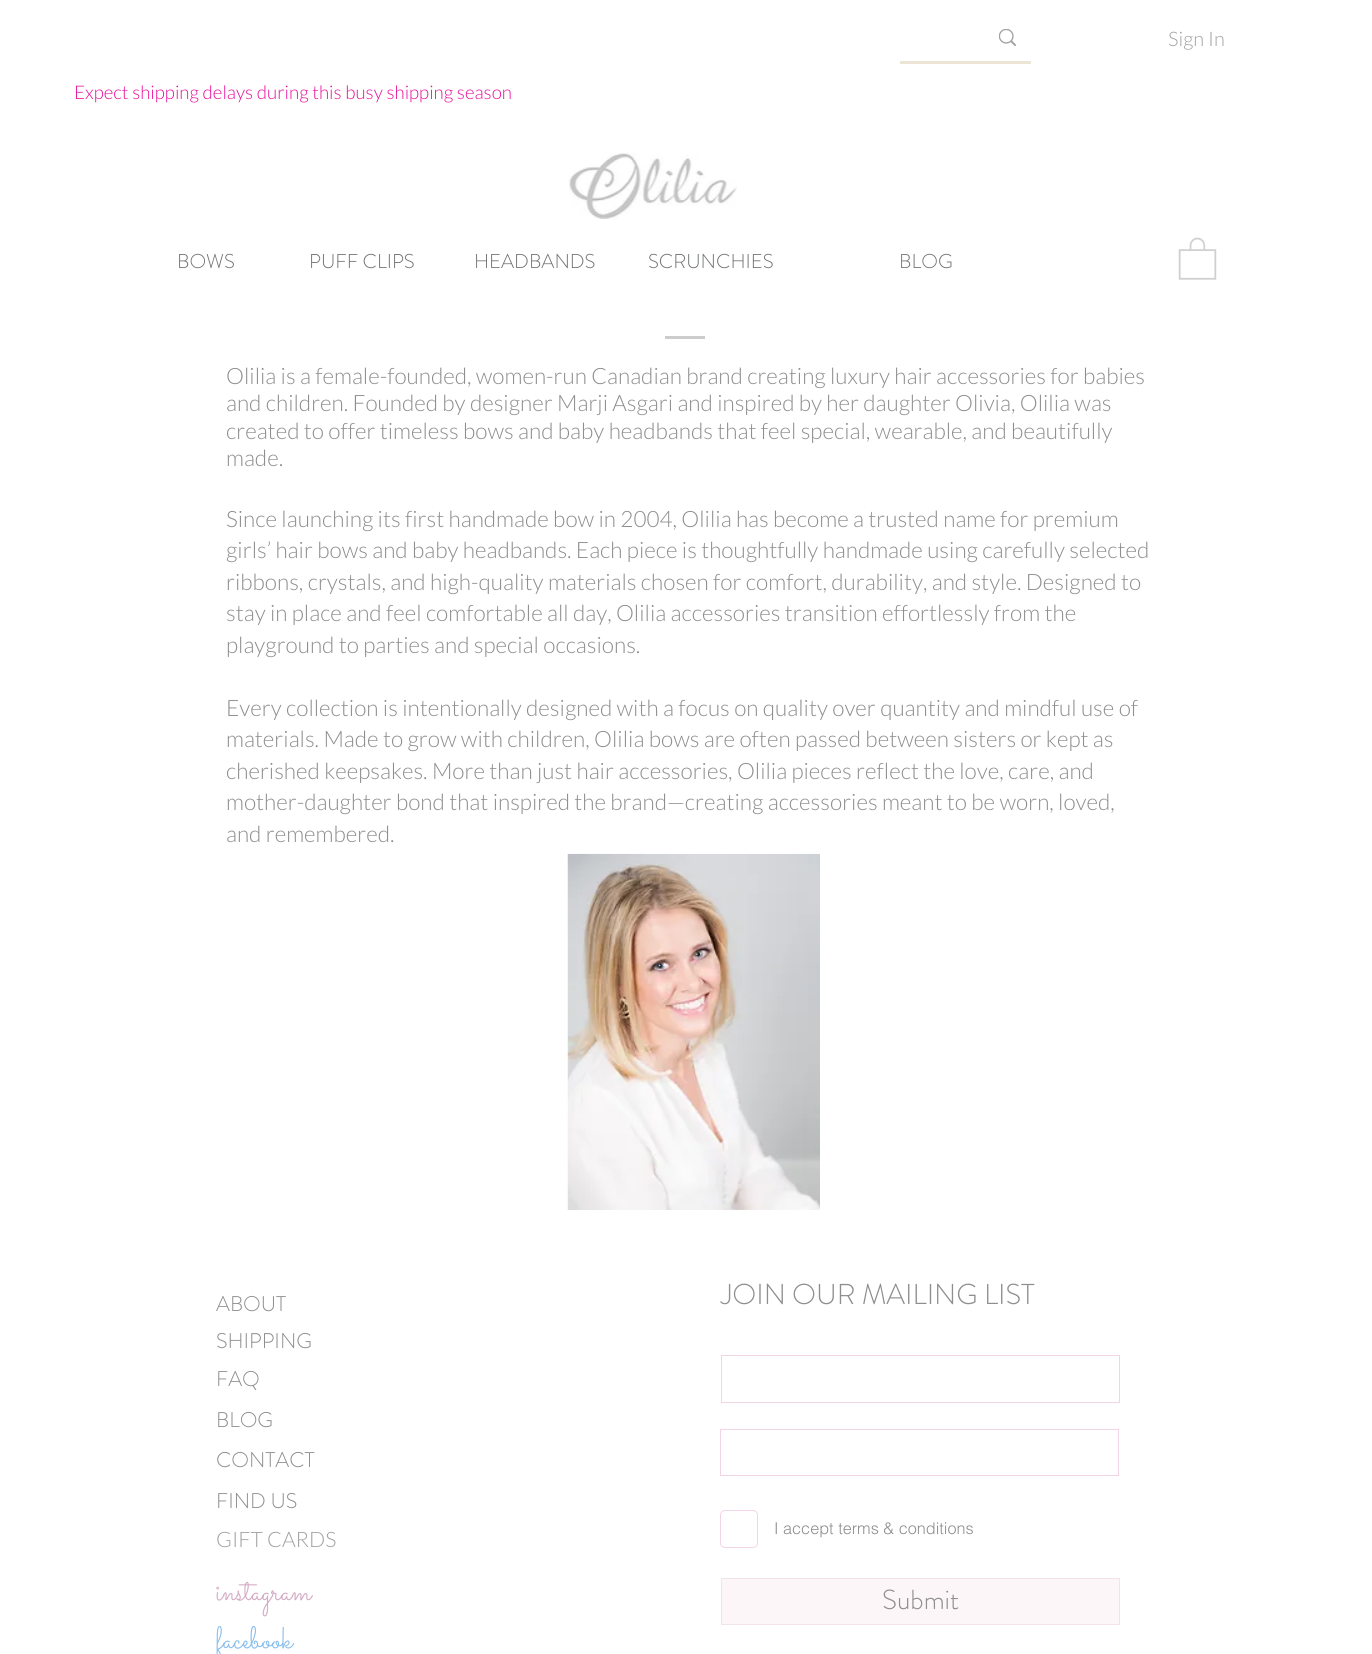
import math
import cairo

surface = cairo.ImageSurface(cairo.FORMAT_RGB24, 1372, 1654)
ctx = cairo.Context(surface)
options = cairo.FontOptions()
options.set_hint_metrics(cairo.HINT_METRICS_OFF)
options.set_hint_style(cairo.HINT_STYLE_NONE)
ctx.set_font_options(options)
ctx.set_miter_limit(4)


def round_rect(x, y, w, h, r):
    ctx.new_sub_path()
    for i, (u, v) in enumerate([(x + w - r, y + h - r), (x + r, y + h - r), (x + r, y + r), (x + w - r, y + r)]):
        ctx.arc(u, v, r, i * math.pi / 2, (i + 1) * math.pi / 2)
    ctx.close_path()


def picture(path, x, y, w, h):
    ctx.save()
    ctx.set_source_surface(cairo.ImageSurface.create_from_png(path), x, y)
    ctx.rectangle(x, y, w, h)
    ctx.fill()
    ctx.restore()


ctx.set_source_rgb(1, 1, 1)
ctx.paint()
ctx.set_source_rgb(0.922, 0.898, 0.839)
ctx.rectangle(900, 61, 131, 3)
ctx.fill()
picture("img1.png", 999, 29, 17, 17)
ctx.select_font_face("Lato Light")
ctx.set_font_size(20)
ctx.set_source_rgb(0.627, 0.635, 0.631)
ctx.move_to(1168, 46)
ctx.show_text("Sign In")
ctx.set_font_size(18.75)
ctx.set_source_rgb(0.91, 0.063, 0.612)
ctx.move_to(74, 99)
ctx.show_text("Expect shipping delays during this busy shipping season")
picture("img2.png", 569, 153, 168, 66)
ctx.select_font_face("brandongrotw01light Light")
ctx.set_font_size(20)
ctx.set_source_rgb(0.439, 0.451, 0.447)
ctx.move_to(177, 268)
ctx.show_text("BOWS")
ctx.move_to(309, 268)
ctx.show_text("PUFF CLIPS")
ctx.move_to(474, 268)
ctx.show_text("HEADBANDS")
ctx.move_to(648, 268)
ctx.show_text("SCRUNCHIES")
ctx.move_to(899, 268)
ctx.show_text("BLOG")
picture("img3.png", 1178, 237, 39, 43)
ctx.set_source_rgb(0.8, 0.8, 0.8)
ctx.rectangle(665, 336, 40, 3)
ctx.fill()
ctx.select_font_face("Lato Light")
ctx.set_font_size(22.5)
ctx.set_source_rgb(0.561, 0.553, 0.553)
ctx.move_to(226, 384)
ctx.show_text("Olilia is a female-founded, women-run Canadian brand creating luxury hair accessories for babies")
ctx.move_to(226, 411)
ctx.show_text("and children. Founded by designer Marji Asgari and inspired by her daughter Olivia, Olilia was")
ctx.move_to(226, 439)
ctx.show_text("created to offer timeless bows and baby headbands that feel special, wearable, and beautifully")
ctx.move_to(226, 466)
ctx.show_text("made.")
ctx.move_to(226, 527)
ctx.show_text("Since launching its first handmade bow in 2004, Olilia has become a trusted name for premium")
ctx.move_to(226, 558)
ctx.show_text("girls’ hair bows and baby headbands. Each piece is thoughtfully handmade using carefully selected")
ctx.move_to(226, 590)
ctx.show_text("ribbons, crystals, and high-quality materials chosen for comfort, durability, and style. Designed to")
ctx.move_to(226, 621)
ctx.show_text("stay in place and feel comfortable all day, Olilia accessories transition effortlessly from the")
ctx.move_to(226, 653)
ctx.show_text("playground to parties and special occasions.")
ctx.move_to(226, 716)
ctx.show_text("Every collection is intentionally designed with a focus on quality over quantity and mindful use of")
ctx.move_to(226, 747)
ctx.show_text("materials. Made to grow with children, Olilia bows are often passed between sisters or kept as")
ctx.move_to(226, 779)
ctx.show_text("cherished keepsakes. More than just hair accessories, Olilia pieces reflect the love, care, and")
ctx.move_to(226, 810)
ctx.show_text("mother-daughter bond that inspired the brand—creating accessories meant to be worn, loved,")
ctx.move_to(226, 842)
ctx.show_text("and remembered.")
picture("img4.png", 567, 853, 253, 357)
ctx.select_font_face("brandongrotw01light Light")
ctx.set_font_size(21.25)
ctx.move_to(216, 1311)
ctx.show_text("ABOUT")
ctx.set_font_size(28.75)
ctx.move_to(721, 1304)
ctx.show_text("JOIN OUR MAILING LIST")
ctx.rectangle(721.5, 1355.5, 398, 47)
ctx.set_source_rgb(0.949, 0.835, 0.898)
ctx.set_line_width(1)
ctx.stroke()
ctx.rectangle(720.5, 1429.5, 398, 46)
ctx.stroke()
round_rect(720.5, 1510.5, 37, 37, 4.5)
ctx.stroke()
ctx.select_font_face("helvetica Light")
ctx.set_font_size(16.25)
ctx.set_source_rgb(0.561, 0.553, 0.553)
ctx.move_to(774, 1534)
ctx.show_text("I accept terms & conditions")
ctx.set_source_rgb(0.988, 0.961, 0.976)
ctx.rectangle(721.5, 1578.5, 398, 46)
ctx.fill_preserve()
ctx.set_source_rgb(0.945, 0.886, 0.918)
ctx.stroke()
ctx.select_font_face("brandongrotw01light Light")
ctx.set_font_size(27.5)
ctx.set_source_rgb(0.561, 0.553, 0.553)
ctx.move_to(882, 1609)
ctx.show_text("Submit")
ctx.set_font_size(21.25)
ctx.move_to(216, 1348)
ctx.show_text("SHIPPING")
ctx.move_to(216, 1386)
ctx.show_text("FAQ")
ctx.move_to(216, 1427)
ctx.show_text("BLOG")
ctx.move_to(216, 1467)
ctx.show_text("CONTACT")
ctx.move_to(216, 1508)
ctx.show_text("FIND US")
ctx.select_font_face("Lato Light")
ctx.set_source_rgb(0.627, 0.635, 0.631)
ctx.move_to(216, 1547)
ctx.show_text("GIFT CARDS")
ctx.select_font_face("Sacramento")
ctx.set_font_size(31)
ctx.set_source_rgb(0.831, 0.671, 0.769)
ctx.move_to(216, 1600)
ctx.show_text("instagram")
ctx.set_source_rgb(0.541, 0.745, 0.922)
ctx.move_to(216, 1648)
ctx.show_text("facebook")
surface.write_to_png("page.png")
